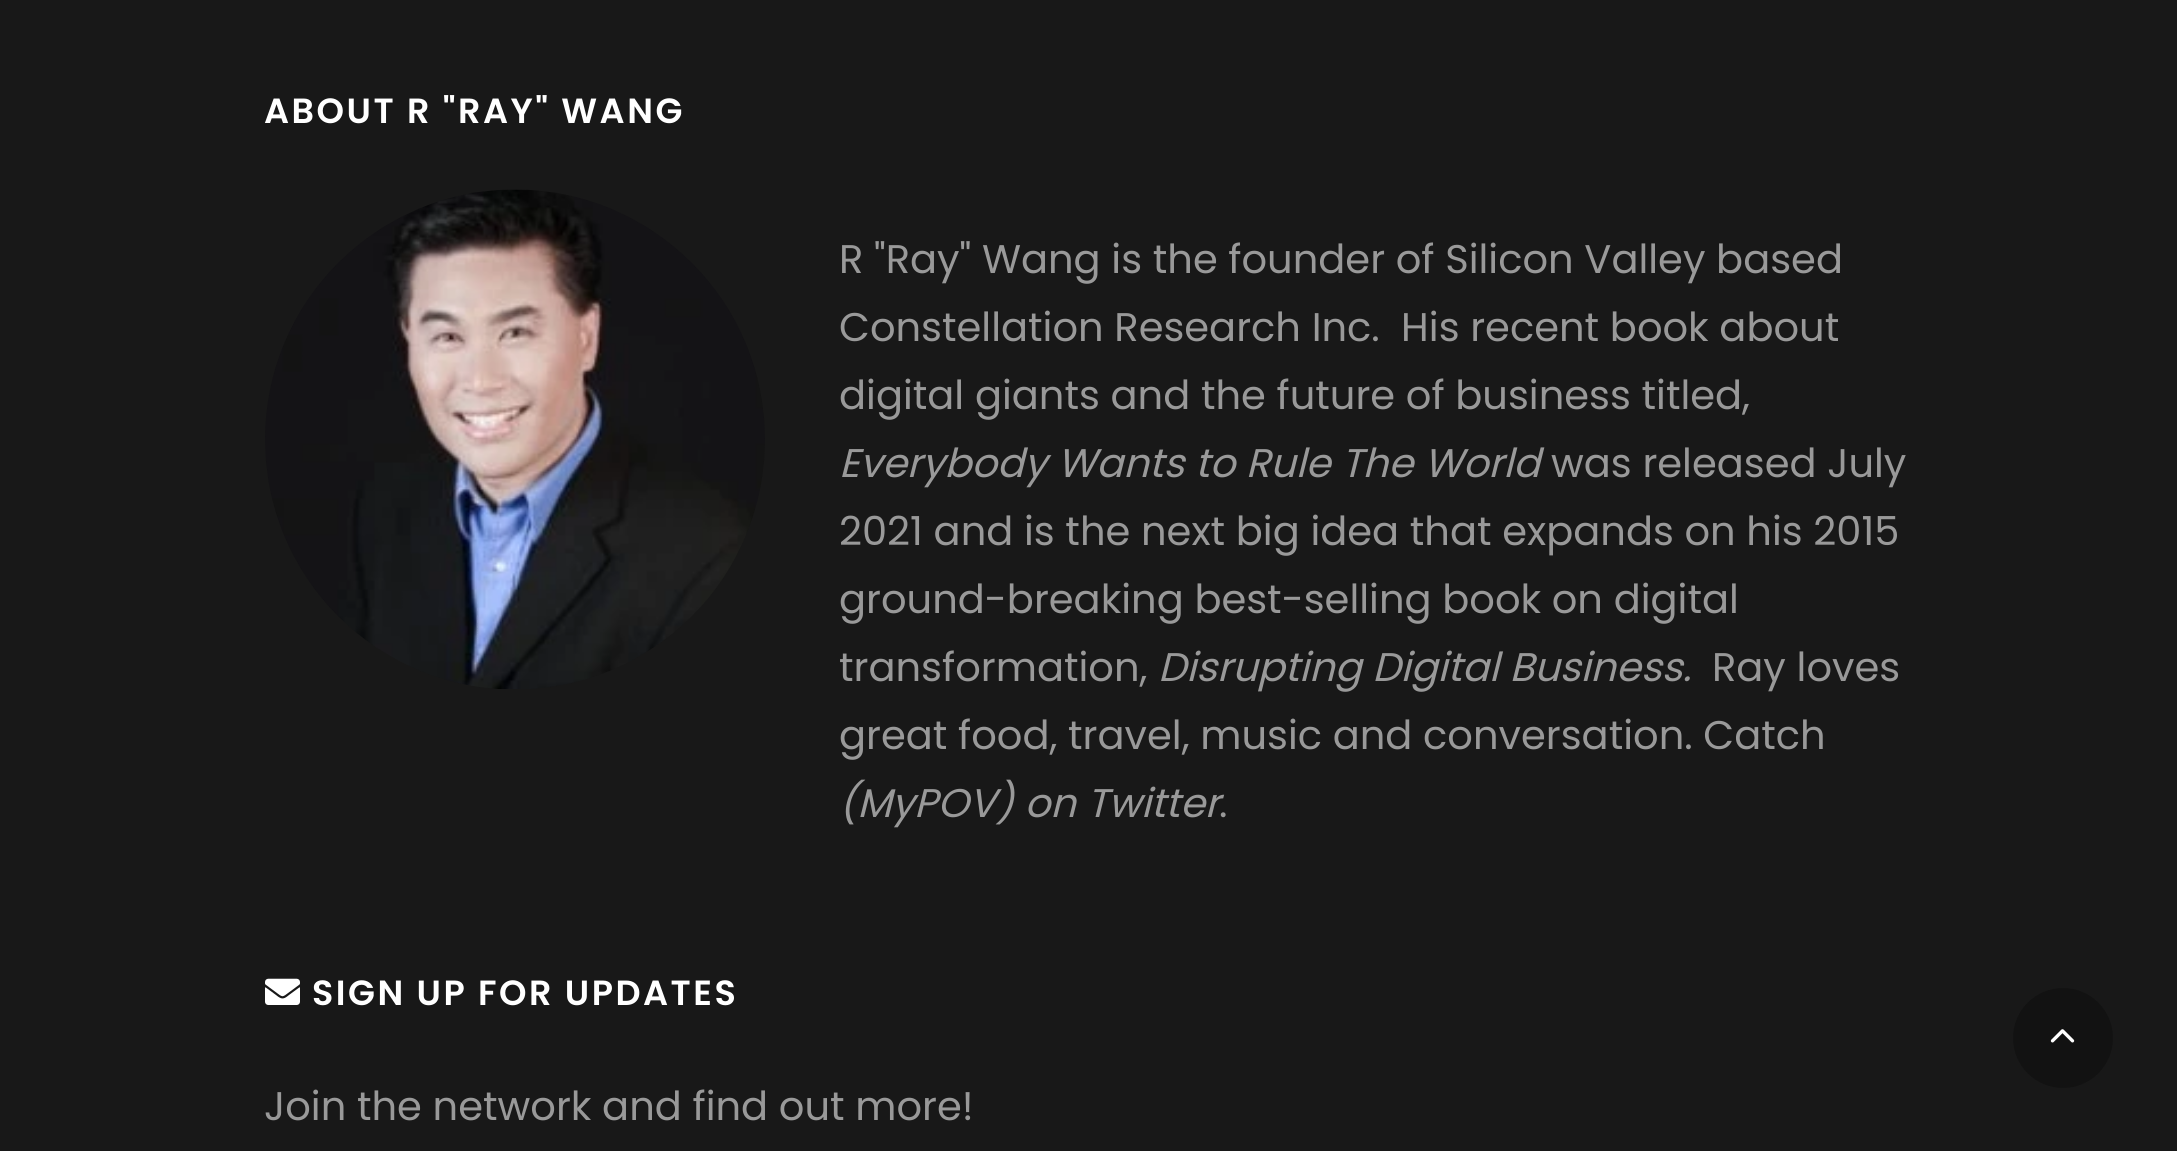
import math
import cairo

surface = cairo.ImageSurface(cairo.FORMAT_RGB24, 2177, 1151)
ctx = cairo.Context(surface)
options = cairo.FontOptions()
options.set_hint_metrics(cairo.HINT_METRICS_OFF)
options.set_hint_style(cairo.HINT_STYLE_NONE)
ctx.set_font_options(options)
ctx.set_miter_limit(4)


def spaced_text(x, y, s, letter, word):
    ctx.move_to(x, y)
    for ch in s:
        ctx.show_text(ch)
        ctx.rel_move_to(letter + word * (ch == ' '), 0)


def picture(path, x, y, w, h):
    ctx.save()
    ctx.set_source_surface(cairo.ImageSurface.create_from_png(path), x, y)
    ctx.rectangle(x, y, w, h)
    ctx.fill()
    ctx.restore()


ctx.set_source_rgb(0.094, 0.094, 0.094)
ctx.paint()
ctx.select_font_face("Poppins SemiBold")
ctx.set_font_size(35)
ctx.set_source_rgb(1, 1, 1)
spaced_text(264, 123, "ABOUT R \"RAY\" WANG", 2.5, 0)
picture("img1.png", 265, 189, 500, 500)
ctx.select_font_face("Poppins")
ctx.set_font_size(40)
ctx.set_source_rgb(0.6, 0.6, 0.6)
ctx.move_to(839, 273)
ctx.show_text("R \"Ray\" Wang is the founder of Silicon Valley based")
ctx.move_to(839, 341)
ctx.show_text("Constellation Research Inc.  His recent book about")
ctx.move_to(839, 409)
ctx.show_text("digital giants and the future of business titled,")
ctx.select_font_face("Poppins", cairo.FONT_SLANT_ITALIC)
ctx.move_to(839, 477)
ctx.show_text("Everybody Wants to Rule The World")
ctx.select_font_face("Poppins")
ctx.move_to(1551, 477)
ctx.show_text("was released July")
ctx.move_to(839, 545)
ctx.show_text("2021 and is the next big idea that expands on his 2015")
ctx.move_to(839, 613)
ctx.show_text("ground-breaking best-selling book on digital")
ctx.move_to(839, 681)
ctx.show_text("transformation,")
ctx.select_font_face("Poppins", cairo.FONT_SLANT_ITALIC)
ctx.move_to(1158, 681)
ctx.show_text("Disrupting Digital Business.")
ctx.select_font_face("Poppins")
ctx.move_to(1712, 681)
ctx.show_text("Ray loves")
ctx.move_to(839, 749)
ctx.show_text("great food, travel, music and conversation. Catch")
ctx.select_font_face("Poppins", cairo.FONT_SLANT_ITALIC)
ctx.move_to(839, 817)
ctx.show_text("(MyPOV) on Twitter")
ctx.select_font_face("Poppins")
ctx.move_to(1219, 817)
ctx.show_text(".")
picture("img2.png", 265, 978, 35, 27)
ctx.select_font_face("Poppins SemiBold")
ctx.set_font_size(35)
ctx.set_source_rgb(1, 1, 1)
spaced_text(312, 1005, "SIGN UP FOR UPDATES", 2.5, 0)
ctx.select_font_face("Poppins")
ctx.set_font_size(40)
ctx.set_source_rgb(0.6, 0.6, 0.6)
ctx.move_to(264, 1120)
ctx.show_text("Join the network and find out more!")
ctx.set_source_rgb(0.071, 0.071, 0.071)
ctx.new_path()
ctx.arc(2063, 1038, 50, 0, 2 * math.pi)
ctx.fill()
picture("img3.png", 2050, 1029, 25, 14)
surface.write_to_png("page.png")
